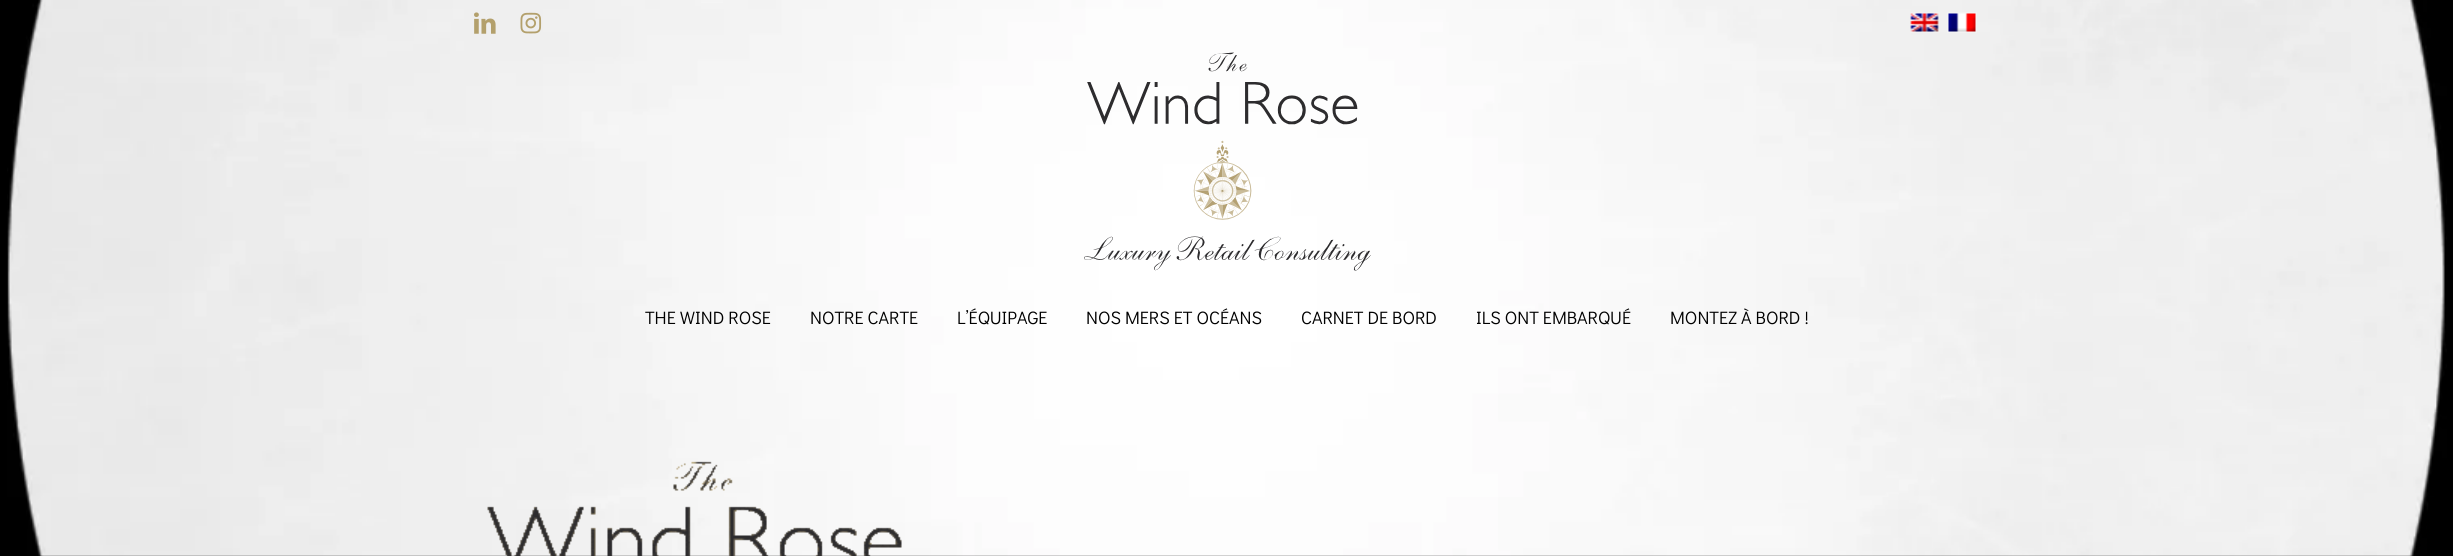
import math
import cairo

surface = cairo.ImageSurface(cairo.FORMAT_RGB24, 2453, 556)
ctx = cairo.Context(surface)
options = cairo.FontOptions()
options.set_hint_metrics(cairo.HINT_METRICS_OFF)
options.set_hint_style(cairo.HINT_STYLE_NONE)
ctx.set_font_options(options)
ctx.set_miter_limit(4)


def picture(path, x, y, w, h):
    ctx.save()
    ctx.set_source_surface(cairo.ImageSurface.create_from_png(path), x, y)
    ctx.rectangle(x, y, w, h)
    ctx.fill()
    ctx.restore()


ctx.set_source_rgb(0, 0, 0)
ctx.paint()
picture("img1.png", 7, 0, 2440, 556)
picture("img2.png", 474, 12, 22, 22)
picture("img3.png", 520, 12, 22, 22)
ctx.rectangle(1911, 13, 28, 19)
ctx.set_source_rgb(0.949, 0.949, 0.949)
ctx.stroke()
picture("img4.png", 1910, 13, 29, 19)
ctx.rectangle(1948, 13, 28, 19)
ctx.set_source_rgb(0.953, 0.953, 0.953)
ctx.stroke()
picture("img5.png", 1948, 13, 28, 19)
picture("img6.png", 1084, 52, 287, 219)
ctx.select_font_face("Didact Gothic")
ctx.set_font_size(18)
ctx.set_source_rgb(0, 0, 0)
ctx.move_to(645, 324)
ctx.show_text("THE WIND ROSE")
ctx.move_to(810, 324)
ctx.show_text("NOTRE CARTE")
ctx.move_to(957, 324)
ctx.show_text("L’ÉQUIPAGE")
ctx.move_to(1086, 324)
ctx.show_text("NOS MERS ET OCÉANS")
ctx.move_to(1301, 324)
ctx.show_text("CARNET DE BORD")
ctx.move_to(1476, 324)
ctx.show_text("ILS ONT EMBARQUÉ")
ctx.move_to(1670, 324)
ctx.show_text("MONTEZ À BORD !")
picture("img7.png", 487, 461, 415, 95)
surface.write_to_png("page.png")
